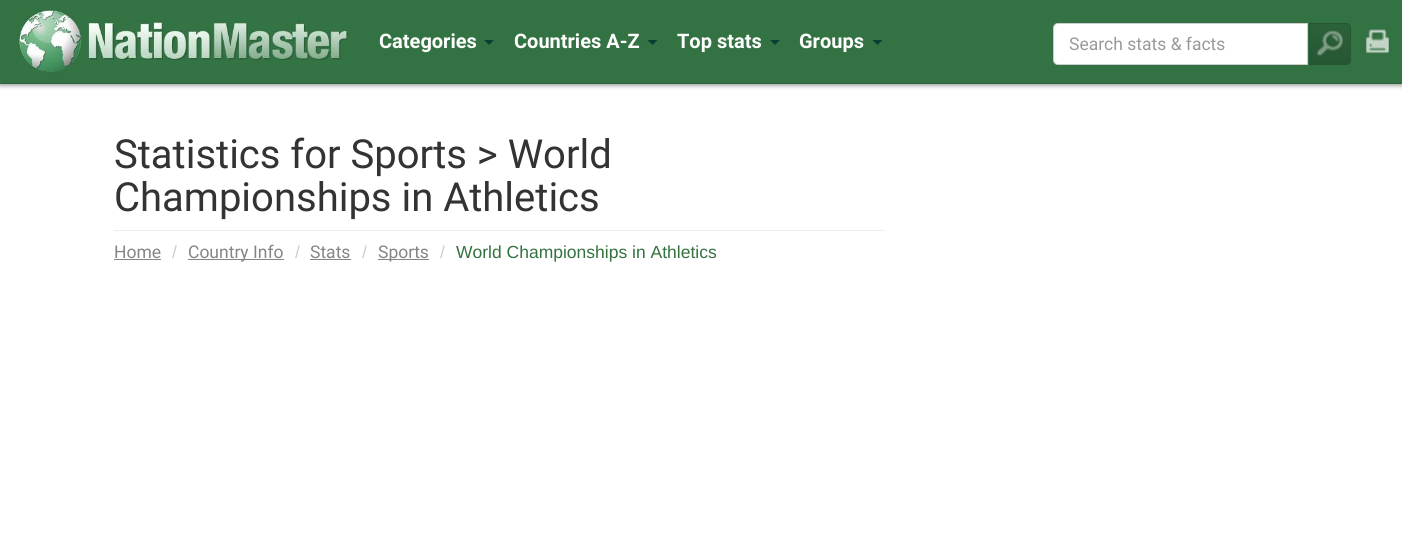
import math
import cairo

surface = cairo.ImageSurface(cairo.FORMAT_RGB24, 1402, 552)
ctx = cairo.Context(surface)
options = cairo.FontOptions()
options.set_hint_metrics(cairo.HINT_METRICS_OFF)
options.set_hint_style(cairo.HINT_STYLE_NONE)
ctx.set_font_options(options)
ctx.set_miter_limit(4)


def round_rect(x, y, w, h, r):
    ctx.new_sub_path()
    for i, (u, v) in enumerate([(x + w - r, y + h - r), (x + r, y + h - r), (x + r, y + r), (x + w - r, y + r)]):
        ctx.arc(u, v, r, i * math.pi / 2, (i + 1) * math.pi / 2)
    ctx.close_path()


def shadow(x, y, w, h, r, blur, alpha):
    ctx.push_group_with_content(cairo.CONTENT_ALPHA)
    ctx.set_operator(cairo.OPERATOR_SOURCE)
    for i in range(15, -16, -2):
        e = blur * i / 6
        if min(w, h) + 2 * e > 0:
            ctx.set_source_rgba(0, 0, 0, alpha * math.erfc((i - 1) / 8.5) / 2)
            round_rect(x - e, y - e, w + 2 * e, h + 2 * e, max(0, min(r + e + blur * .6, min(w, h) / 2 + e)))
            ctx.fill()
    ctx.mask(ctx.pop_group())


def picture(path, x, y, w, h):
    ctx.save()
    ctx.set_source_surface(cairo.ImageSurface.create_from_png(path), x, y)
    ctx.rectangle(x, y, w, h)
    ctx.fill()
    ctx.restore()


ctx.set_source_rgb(1, 1, 1)
ctx.paint()
ctx.set_source_rgb(0, 0, 0)
shadow(0, 3, 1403, 83, 0, 2, 0.35)
ctx.set_source_rgb(0.2, 0.447, 0.259)
ctx.rectangle(0, 0, 1402, 83)
ctx.fill()
ctx.set_source_rgb(0.173, 0.396, 0.239)
ctx.rectangle(0, 83, 1402, 1)
ctx.fill()
picture("img1.png", 19, 10, 330, 63)
ctx.select_font_face("Roboto", cairo.FONT_SLANT_NORMAL, cairo.FONT_WEIGHT_BOLD)
ctx.set_font_size(20)
ctx.set_source_rgb(1, 1, 1)
ctx.move_to(379, 48)
ctx.show_text("Categories")
ctx.set_source_rgb(0.027, 0.247, 0.2)
ctx.new_path()
ctx.move_to(484, 40)
ctx.line_to(494, 40)
ctx.line_to(489, 45)
ctx.close_path()
ctx.fill()
ctx.set_source_rgb(1, 1, 1)
ctx.move_to(514, 48)
ctx.show_text("Countries A-Z")
ctx.set_source_rgb(0.027, 0.247, 0.2)
ctx.new_path()
ctx.move_to(647.5, 40)
ctx.line_to(657.5, 40)
ctx.line_to(652.5, 45)
ctx.close_path()
ctx.fill()
ctx.set_source_rgb(1, 1, 1)
ctx.move_to(677, 48)
ctx.show_text("Top stats")
ctx.set_source_rgb(0.027, 0.247, 0.2)
ctx.new_path()
ctx.move_to(770, 40)
ctx.line_to(780, 40)
ctx.line_to(775, 45)
ctx.close_path()
ctx.fill()
ctx.set_source_rgb(1, 1, 1)
ctx.move_to(799, 48)
ctx.show_text("Groups")
ctx.set_source_rgb(0.027, 0.247, 0.2)
ctx.new_path()
ctx.move_to(872.5, 40)
ctx.line_to(882.5, 40)
ctx.line_to(877.5, 45)
ctx.close_path()
ctx.fill()
ctx.set_source_rgb(1, 1, 1)
ctx.new_path()
ctx.move_to(1058, 23.5)
ctx.line_to(1307.5, 23.5)
ctx.line_to(1307.5, 64.5)
ctx.line_to(1058, 64.5)
ctx.curve_to(1055.5, 64.5, 1053.5, 62.5, 1053.5, 60)
ctx.line_to(1053.5, 28)
ctx.curve_to(1053.5, 25.5, 1055.5, 23.5, 1058, 23.5)
ctx.close_path()
ctx.fill_preserve()
ctx.set_source_rgb(0.8, 0.8, 0.8)
ctx.set_line_width(1)
ctx.stroke()
ctx.select_font_face("Roboto")
ctx.set_font_size(17.5)
ctx.set_source_rgb(0.6, 0.6, 0.6)
ctx.move_to(1069, 50)
ctx.show_text("Search stats & facts")
ctx.save()
ctx.new_path()
ctx.move_to(1309, 23)
ctx.line_to(1346, 23)
ctx.curve_to(1349, 23, 1351, 25, 1351, 28)
ctx.line_to(1351, 60)
ctx.curve_to(1351, 63, 1349, 65, 1346, 65)
ctx.line_to(1309, 65)
ctx.close_path()
ctx.clip()
gradient = cairo.LinearGradient(1330, 24, 1330, 64)
gradient.add_color_stop_rgba(0, 0.169, 0.38, 0.22, 1)
gradient.add_color_stop_rgba(1, 0.149, 0.341, 0.2, 1)
ctx.set_source(gradient)
ctx.rectangle(1310, 24, 41, 40)
ctx.fill()
ctx.restore()
ctx.new_path()
ctx.move_to(1309.5, 23.5)
ctx.line_to(1346, 23.5)
ctx.curve_to(1348.5, 23.5, 1350.5, 25.5, 1350.5, 28)
ctx.line_to(1350.5, 60)
ctx.curve_to(1350.5, 62.5, 1348.5, 64.5, 1346, 64.5)
ctx.line_to(1309.5, 64.5)
ctx.close_path()
ctx.set_source_rgb(0.149, 0.341, 0.2)
ctx.stroke()
picture("img2.png", 1317, 30, 26, 26)
picture("img3.png", 1366, 29, 24, 25)
ctx.set_source_rgb(0.933, 0.933, 0.933)
ctx.rectangle(114, 230, 771, 1)
ctx.fill()
ctx.set_font_size(40)
ctx.set_source_rgb(0.2, 0.2, 0.2)
ctx.move_to(114, 168)
ctx.show_text("Statistics for Sports > World")
ctx.move_to(114, 211)
ctx.show_text("Championships in Athletics")
ctx.set_font_size(17.5)
ctx.set_source_rgb(0.522, 0.522, 0.522)
ctx.move_to(114, 258)
ctx.show_text("Home")
ctx.rectangle(114, 259, 47, 1)
ctx.fill()
ctx.select_font_face("Liberation Sans")
ctx.set_source_rgb(0.8, 0.8, 0.8)
ctx.move_to(172, 258)
ctx.show_text("/")
ctx.set_source_rgb(0.522, 0.522, 0.522)
ctx.rectangle(188, 259, 96, 1)
ctx.fill()
ctx.select_font_face("Roboto")
ctx.move_to(188, 258)
ctx.show_text("Country Info")
ctx.select_font_face("Liberation Sans")
ctx.set_source_rgb(0.8, 0.8, 0.8)
ctx.move_to(295, 258)
ctx.show_text("/")
ctx.select_font_face("Roboto")
ctx.set_source_rgb(0.522, 0.522, 0.522)
ctx.move_to(310, 258)
ctx.show_text("Stats")
ctx.rectangle(310, 259, 41, 1)
ctx.fill()
ctx.select_font_face("Liberation Sans")
ctx.set_source_rgb(0.8, 0.8, 0.8)
ctx.move_to(362, 258)
ctx.show_text("/")
ctx.set_source_rgb(0.522, 0.522, 0.522)
ctx.rectangle(378, 259, 51, 1)
ctx.fill()
ctx.select_font_face("Roboto")
ctx.move_to(378, 258)
ctx.show_text("Sports")
ctx.select_font_face("Liberation Sans")
ctx.set_source_rgb(0.8, 0.8, 0.8)
ctx.move_to(440, 258)
ctx.show_text("/")
ctx.set_source_rgb(0.2, 0.447, 0.247)
ctx.move_to(456, 258)
ctx.show_text("World Championships in Athletics")
surface.write_to_png("page.png")
